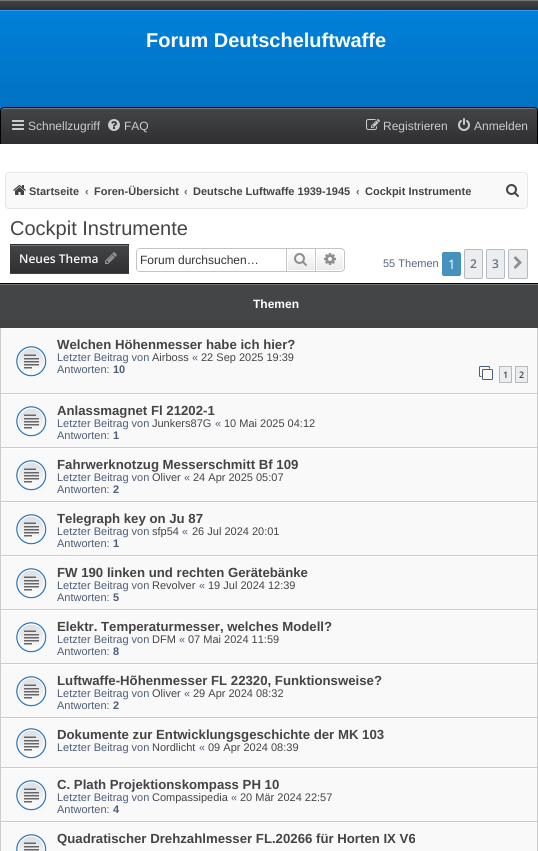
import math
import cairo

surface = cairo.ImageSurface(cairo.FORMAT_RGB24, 538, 851)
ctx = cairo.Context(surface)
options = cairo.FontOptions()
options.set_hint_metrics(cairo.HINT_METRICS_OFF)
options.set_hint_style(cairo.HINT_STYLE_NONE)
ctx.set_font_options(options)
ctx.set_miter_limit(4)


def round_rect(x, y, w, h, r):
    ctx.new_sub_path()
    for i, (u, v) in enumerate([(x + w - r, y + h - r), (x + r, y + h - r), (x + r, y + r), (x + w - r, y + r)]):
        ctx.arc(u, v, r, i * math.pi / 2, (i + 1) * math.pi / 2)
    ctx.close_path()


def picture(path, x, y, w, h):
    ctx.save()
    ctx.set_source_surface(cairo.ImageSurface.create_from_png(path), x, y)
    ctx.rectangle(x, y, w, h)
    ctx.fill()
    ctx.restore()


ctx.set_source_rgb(1, 1, 1)
ctx.paint()
gradient = cairo.LinearGradient(269, 0, 269, 10)
gradient.add_color_stop_rgba(0, 0.267, 0.271, 0.278, 1)
gradient.add_color_stop_rgba(1, 0.184, 0.184, 0.192, 1)
ctx.set_source(gradient)
ctx.rectangle(0, 1, 538, 9)
ctx.fill()
ctx.set_source_rgb(0.459, 0.459, 0.459)
ctx.rectangle(0, 0, 538, 1)
ctx.fill()
ctx.set_source_rgb(0.2, 0.6, 1)
ctx.rectangle(0, 10, 538, 1)
ctx.fill()
gradient = cairo.LinearGradient(269, 11, 269, 143)
gradient.add_color_stop_rgba(0, 0, 0.502, 0.855, 1)
gradient.add_color_stop_rgba(1, 0, 0.427, 0.725, 1)
ctx.set_source(gradient)
ctx.rectangle(0, 11, 538, 100)
ctx.fill()
ctx.select_font_face("Liberation Sans", cairo.FONT_SLANT_NORMAL, cairo.FONT_WEIGHT_BOLD)
ctx.set_font_size(20)
ctx.set_source_rgb(1, 1, 1)
ctx.move_to(146, 47)
ctx.show_text("Forum Deutscheluftwaffe")
ctx.save()
ctx.new_path()
ctx.move_to(4, 107)
ctx.line_to(534, 107)
ctx.curve_to(536, 107, 538, 109, 538, 111)
ctx.line_to(538, 144)
ctx.line_to(0, 144)
ctx.line_to(0, 111)
ctx.curve_to(0, 109, 2, 107, 4, 107)
ctx.close_path()
ctx.clip()
gradient = cairo.LinearGradient(269, 108, 269, 144)
gradient.add_color_stop_rgba(0, 0.267, 0.271, 0.278, 1)
gradient.add_color_stop_rgba(1, 0.184, 0.184, 0.192, 1)
ctx.set_source(gradient)
ctx.rectangle(0, 108, 538, 36)
ctx.fill()
ctx.restore()
ctx.set_source_rgb(0.459, 0.459, 0.459)
ctx.new_path()
ctx.move_to(4, 109)
ctx.line_to(534, 109)
ctx.curve_to(536, 109, 537, 110, 537, 112)
ctx.line_to(537, 111)
ctx.curve_to(537, 109, 536, 108, 534, 108)
ctx.line_to(4, 108)
ctx.curve_to(2, 108, 1, 109, 1, 111)
ctx.line_to(1, 112)
ctx.curve_to(1, 110, 2, 109, 4, 109)
ctx.close_path()
ctx.fill()
ctx.set_source_rgb(0, 0, 0)
ctx.set_fill_rule(cairo.FILL_RULE_EVEN_ODD)
ctx.new_path()
ctx.move_to(4, 107)
ctx.line_to(534, 107)
ctx.curve_to(536, 107, 538, 109, 538, 111)
ctx.line_to(538, 144)
ctx.line_to(0, 144)
ctx.line_to(0, 111)
ctx.curve_to(0, 109, 2, 107, 4, 107)
ctx.close_path()
ctx.move_to(4, 108)
ctx.line_to(534, 108)
ctx.curve_to(536, 108, 537, 109, 537, 111)
ctx.line_to(537, 144)
ctx.line_to(1, 144)
ctx.line_to(1, 111)
ctx.curve_to(1, 109, 2, 108, 4, 108)
ctx.close_path()
ctx.fill()
picture("img1.png", 12, 120, 12, 10)
ctx.select_font_face("Liberation Sans")
ctx.set_font_size(12)
ctx.set_source_rgb(0.8, 0.8, 0.8)
ctx.move_to(28, 130)
ctx.show_text("Schnellzugriff")
picture("img2.png", 108, 119, 12, 12)
ctx.move_to(124, 130)
ctx.show_text("FAQ")
picture("img3.png", 366, 119, 14, 11)
ctx.move_to(383, 130)
ctx.show_text("Registrieren")
picture("img4.png", 458, 118, 12, 13)
ctx.move_to(474, 130)
ctx.show_text("Anmelden")
ctx.set_source_rgb(0.973, 0.973, 0.973)
round_rect(5, 172, 523, 37, 4)
ctx.fill()
ctx.set_source_rgb(1, 1, 1)
ctx.set_fill_rule(cairo.FILL_RULE_WINDING)
ctx.new_path()
ctx.move_to(9, 174)
ctx.line_to(524, 174)
ctx.curve_to(526, 174, 527, 175, 527, 177)
ctx.line_to(527, 175)
ctx.line_to(525, 173)
ctx.line_to(9, 173)
ctx.curve_to(7, 173, 6, 175, 6, 177)
ctx.curve_to(6, 175, 7, 174, 9, 174)
ctx.close_path()
ctx.fill()
round_rect(5.5, 172.5, 522, 36, 3.5)
ctx.set_source_rgb(0.902, 0.902, 0.902)
ctx.set_line_width(1)
ctx.stroke()
picture("img5.png", 13, 185, 13, 10)
ctx.select_font_face("Liberation Sans", cairo.FONT_SLANT_NORMAL, cairo.FONT_WEIGHT_BOLD)
ctx.set_font_size(11)
ctx.set_source_rgb(0.267, 0.267, 0.267)
ctx.move_to(29, 195)
ctx.show_text("Startseite")
ctx.set_source_rgb(0.325, 0.392, 0.51)
ctx.move_to(85, 195)
ctx.show_text("‹")
ctx.set_source_rgb(0.267, 0.267, 0.267)
ctx.move_to(94, 195)
ctx.show_text("Foren-Übersicht")
ctx.set_source_rgb(0.325, 0.392, 0.51)
ctx.move_to(184, 195)
ctx.show_text("‹")
ctx.set_source_rgb(0.267, 0.267, 0.267)
ctx.move_to(193, 195)
ctx.show_text("Deutsche Luftwaffe 1939-1945")
ctx.set_source_rgb(0.325, 0.392, 0.51)
ctx.move_to(356, 195)
ctx.show_text("‹")
ctx.set_source_rgb(0.267, 0.267, 0.267)
ctx.move_to(365, 195)
ctx.show_text("Cockpit Instrumente")
picture("img6.png", 506, 184, 13, 13)
ctx.select_font_face("Liberation Sans")
ctx.set_font_size(20)
ctx.move_to(10, 235)
ctx.show_text("Cockpit Instrumente")
gradient = cairo.LinearGradient(70, 217, 70, 245)
gradient.add_color_stop_rgba(0, 0.267, 0.271, 0.278, 1)
gradient.add_color_stop_rgba(1, 0.184, 0.184, 0.192, 1)
ctx.set_source(gradient)
ctx.rectangle(10, 244, 119, 1)
ctx.fill()
gradient = cairo.LinearGradient(70, 245, 70, 273)
gradient.add_color_stop_rgba(0, 0.267, 0.271, 0.278, 1)
gradient.add_color_stop_rgba(1, 0.184, 0.184, 0.192, 1)
ctx.set_source(gradient)
ctx.rectangle(10, 245, 119, 28)
ctx.fill()
gradient = cairo.LinearGradient(70, 273, 70, 301)
gradient.add_color_stop_rgba(0, 0.267, 0.271, 0.278, 1)
gradient.add_color_stop_rgba(1, 0.184, 0.184, 0.192, 1)
ctx.set_source(gradient)
ctx.rectangle(10, 273, 119, 1)
ctx.fill()
ctx.set_source_rgb(0.459, 0.459, 0.459)
ctx.rectangle(11, 245, 117, 1)
ctx.fill()
ctx.select_font_face("Open Sans SemiBold")
ctx.set_font_size(12)
ctx.set_source_rgb(0.973, 0.973, 0.973)
ctx.move_to(19, 263)
ctx.show_text("Neues Thema")
picture("img7.png", 105, 252, 12, 12)
ctx.set_source_rgb(0.78, 0.765, 0.749)
ctx.set_fill_rule(cairo.FILL_RULE_EVEN_ODD)
ctx.new_path()
ctx.move_to(140, 248)
ctx.line_to(286, 248)
ctx.line_to(286, 272)
ctx.line_to(140, 272)
ctx.curve_to(138, 272, 136, 270, 136, 268)
ctx.line_to(136, 252)
ctx.curve_to(136, 250, 138, 248, 140, 248)
ctx.close_path()
ctx.move_to(140, 249)
ctx.line_to(286, 249)
ctx.line_to(286, 271)
ctx.line_to(140, 271)
ctx.curve_to(138, 271, 137, 270, 137, 268)
ctx.line_to(137, 252)
ctx.curve_to(137, 250, 138, 249, 140, 249)
ctx.close_path()
ctx.fill()
ctx.select_font_face("Liberation Sans")
ctx.set_source_rgb(0.2, 0.2, 0.2)
ctx.move_to(140, 264)
ctx.show_text("Forum durchsuchen…")
gradient = cairo.LinearGradient(301, 249, 301, 271)
gradient.add_color_stop_rgba(0, 1, 1, 1, 1)
gradient.add_color_stop_rgba(1, 0.914, 0.914, 0.914, 1)
ctx.set_source(gradient)
ctx.rectangle(288, 252, 26, 18)
ctx.fill()
ctx.rectangle(286.5, 248.5, 29, 23)
ctx.set_source_rgb(0.78, 0.765, 0.749)
ctx.stroke()
picture("img8.png", 294, 253, 13, 13)
gradient = cairo.LinearGradient(330, 249, 330, 271)
gradient.add_color_stop_rgba(0, 1, 1, 1, 1)
gradient.add_color_stop_rgba(1, 0.914, 0.914, 0.914, 1)
ctx.set_source(gradient)
ctx.new_path()
ctx.move_to(316.5, 249.5)
ctx.line_to(341, 249.5)
ctx.curve_to(342.5, 249.5, 343.5, 250.5, 343.5, 252)
ctx.line_to(343.5, 268)
ctx.curve_to(343.5, 269.5, 342.5, 270.5, 341, 270.5)
ctx.line_to(316.5, 270.5)
ctx.close_path()
ctx.fill_preserve()
ctx.set_source_rgb(1, 1, 1)
ctx.stroke()
ctx.set_source_rgb(0.78, 0.765, 0.749)
ctx.new_path()
ctx.move_to(316, 248)
ctx.line_to(341, 248)
ctx.curve_to(343, 248, 345, 250, 345, 252)
ctx.line_to(345, 268)
ctx.curve_to(345, 270, 343, 272, 341, 272)
ctx.line_to(316, 272)
ctx.close_path()
ctx.move_to(316, 249)
ctx.line_to(341, 249)
ctx.curve_to(342.5, 249, 344, 250.5, 344, 252)
ctx.line_to(344, 268)
ctx.curve_to(344, 269.5, 342.5, 271, 341, 271)
ctx.line_to(316, 271)
ctx.close_path()
ctx.fill()
picture("img9.png", 324, 253, 12, 12)
ctx.set_font_size(11)
ctx.set_source_rgb(0.325, 0.392, 0.51)
ctx.move_to(383, 267)
ctx.show_text("55 Themen")
ctx.set_source_rgb(0.275, 0.573, 0.749)
round_rect(442.5, 252.5, 18, 23, 1.5)
ctx.fill_preserve()
ctx.stroke()
ctx.select_font_face("Open Sans")
ctx.set_font_size(13)
ctx.set_source_rgb(1, 1, 1)
ctx.move_to(448, 269)
ctx.show_text("1")
ctx.set_source_rgb(0.925, 0.929, 0.933)
round_rect(464.5, 249.5, 18, 29, 1.5)
ctx.fill_preserve()
ctx.set_source_rgb(0.706, 0.729, 0.753)
ctx.stroke()
ctx.select_font_face("Open Sans SemiBold")
ctx.set_font_size(12)
ctx.set_source_rgb(0.361, 0.459, 0.549)
ctx.move_to(470, 268)
ctx.show_text("2")
ctx.set_source_rgb(0.925, 0.929, 0.933)
round_rect(486.5, 249.5, 18, 29, 1.5)
ctx.fill_preserve()
ctx.set_source_rgb(0.706, 0.729, 0.753)
ctx.stroke()
ctx.set_source_rgb(0.361, 0.459, 0.549)
ctx.move_to(492, 268)
ctx.show_text("3")
ctx.set_source_rgb(0.925, 0.929, 0.933)
round_rect(508.5, 249.5, 19, 29, 1.5)
ctx.fill_preserve()
ctx.set_source_rgb(0.706, 0.729, 0.753)
ctx.stroke()
picture("img10.png", 513, 256, 9, 13)
gradient = cairo.LinearGradient(269, 284, 269, 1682)
gradient.add_color_stop_rgba(0, 0.267, 0.271, 0.278, 1)
gradient.add_color_stop_rgba(1, 0.184, 0.184, 0.192, 1)
ctx.set_source(gradient)
ctx.rectangle(0, 285, 538, 43)
ctx.fill()
ctx.set_source_rgb(0.459, 0.459, 0.459)
ctx.rectangle(0, 284, 538, 1)
ctx.fill()
ctx.set_source_rgb(0, 0, 0)
ctx.rectangle(0, 283, 538, 1)
ctx.fill()
ctx.select_font_face("Liberation Sans", cairo.FONT_SLANT_NORMAL, cairo.FONT_WEIGHT_BOLD)
ctx.set_source_rgb(1, 1, 1)
ctx.move_to(253, 308)
ctx.show_text("Themen")
ctx.set_source_rgb(0.973, 0.973, 0.973)
ctx.rectangle(1, 329, 536, 64)
ctx.fill()
ctx.set_source_rgb(0.8, 0.8, 0.8)
ctx.rectangle(537, 328, 1, 523)
ctx.fill()
ctx.rectangle(0, 393, 538, 1)
ctx.fill()
ctx.rectangle(0, 328, 1, 66)
ctx.fill()
picture("img11.png", 16, 346, 31, 31)
ctx.set_font_size(13.2)
ctx.set_source_rgb(0.267, 0.267, 0.267)
ctx.move_to(57, 349)
ctx.show_text("Welchen Höhenmesser habe ich hier?")
ctx.select_font_face("Liberation Sans")
ctx.set_font_size(11)
ctx.set_source_rgb(0.298, 0.365, 0.467)
ctx.move_to(57, 361)
ctx.show_text("Letzter Beitrag von")
ctx.set_source_rgb(0.267, 0.267, 0.267)
ctx.move_to(152, 361)
ctx.show_text("Airboss")
ctx.set_source_rgb(0.298, 0.365, 0.467)
ctx.move_to(192, 361)
ctx.show_text("«")
ctx.set_source_rgb(0.267, 0.267, 0.267)
ctx.move_to(201, 361)
ctx.show_text("22 Sep 2025 19:39")
ctx.set_source_rgb(0.298, 0.365, 0.467)
ctx.move_to(57, 373)
ctx.show_text("Antworten:")
ctx.select_font_face("Liberation Sans", cairo.FONT_SLANT_NORMAL, cairo.FONT_WEIGHT_BOLD)
ctx.move_to(113, 373)
ctx.show_text("10")
picture("img12.png", 479, 366, 14, 14)
ctx.set_source_rgb(0.925, 0.929, 0.933)
ctx.rectangle(499.5, 366.5, 12, 16)
ctx.fill_preserve()
ctx.set_source_rgb(0.706, 0.729, 0.753)
ctx.stroke()
ctx.select_font_face("Open Sans SemiBold")
ctx.set_font_size(9)
ctx.set_source_rgb(0.267, 0.267, 0.267)
ctx.move_to(503, 378)
ctx.show_text("1")
ctx.set_source_rgb(0.925, 0.929, 0.933)
ctx.rectangle(515.5, 366.5, 12, 16)
ctx.fill_preserve()
ctx.set_source_rgb(0.706, 0.729, 0.753)
ctx.stroke()
ctx.set_source_rgb(0.267, 0.267, 0.267)
ctx.move_to(519, 378)
ctx.show_text("2")
ctx.set_source_rgb(0.973, 0.973, 0.973)
ctx.rectangle(1, 395, 536, 52)
ctx.fill()
ctx.set_source_rgb(0.8, 0.8, 0.8)
ctx.rectangle(0, 447, 538, 1)
ctx.fill()
ctx.rectangle(0, 394, 1, 54)
ctx.fill()
picture("img11.png", 16, 406, 31, 31)
ctx.select_font_face("Liberation Sans", cairo.FONT_SLANT_NORMAL, cairo.FONT_WEIGHT_BOLD)
ctx.set_font_size(13.2)
ctx.set_source_rgb(0.267, 0.267, 0.267)
ctx.move_to(57, 415)
ctx.show_text("Anlassmagnet Fl 21202-1")
ctx.select_font_face("Liberation Sans")
ctx.set_font_size(11)
ctx.set_source_rgb(0.298, 0.365, 0.467)
ctx.move_to(57, 427)
ctx.show_text("Letzter Beitrag von")
ctx.set_source_rgb(0.267, 0.267, 0.267)
ctx.move_to(152, 427)
ctx.show_text("Junkers87G")
ctx.set_source_rgb(0.298, 0.365, 0.467)
ctx.move_to(215, 427)
ctx.show_text("«")
ctx.set_source_rgb(0.267, 0.267, 0.267)
ctx.move_to(224, 427)
ctx.show_text("10 Mai 2025 04:12")
ctx.set_source_rgb(0.298, 0.365, 0.467)
ctx.move_to(57, 439)
ctx.show_text("Antworten:")
ctx.select_font_face("Liberation Sans", cairo.FONT_SLANT_NORMAL, cairo.FONT_WEIGHT_BOLD)
ctx.move_to(113, 439)
ctx.show_text("1")
ctx.set_source_rgb(0.973, 0.973, 0.973)
ctx.rectangle(1, 449, 536, 52)
ctx.fill()
ctx.set_source_rgb(0.8, 0.8, 0.8)
ctx.rectangle(0, 501, 538, 1)
ctx.fill()
ctx.rectangle(0, 448, 1, 54)
ctx.fill()
picture("img11.png", 16, 460, 31, 31)
ctx.set_font_size(13.2)
ctx.set_source_rgb(0.267, 0.267, 0.267)
ctx.move_to(57, 469)
ctx.show_text("Fahrwerknotzug Messerschmitt Bf 109")
ctx.select_font_face("Liberation Sans")
ctx.set_font_size(11)
ctx.set_source_rgb(0.298, 0.365, 0.467)
ctx.move_to(57, 481)
ctx.show_text("Letzter Beitrag von")
ctx.set_source_rgb(0.267, 0.267, 0.267)
ctx.move_to(152, 481)
ctx.show_text("Oliver")
ctx.set_source_rgb(0.298, 0.365, 0.467)
ctx.move_to(184, 481)
ctx.show_text("«")
ctx.set_source_rgb(0.267, 0.267, 0.267)
ctx.move_to(193, 481)
ctx.show_text("24 Apr 2025 05:07")
ctx.set_source_rgb(0.298, 0.365, 0.467)
ctx.move_to(57, 493)
ctx.show_text("Antworten:")
ctx.select_font_face("Liberation Sans", cairo.FONT_SLANT_NORMAL, cairo.FONT_WEIGHT_BOLD)
ctx.move_to(113, 493)
ctx.show_text("2")
ctx.set_source_rgb(0.973, 0.973, 0.973)
ctx.rectangle(1, 503, 536, 52)
ctx.fill()
ctx.set_source_rgb(0.8, 0.8, 0.8)
ctx.rectangle(0, 555, 538, 1)
ctx.fill()
ctx.rectangle(0, 502, 1, 54)
ctx.fill()
picture("img11.png", 16, 514, 31, 31)
ctx.set_font_size(13.2)
ctx.set_source_rgb(0.267, 0.267, 0.267)
ctx.move_to(57, 523)
ctx.show_text("Telegraph key on Ju 87")
ctx.select_font_face("Liberation Sans")
ctx.set_font_size(11)
ctx.set_source_rgb(0.298, 0.365, 0.467)
ctx.move_to(57, 535)
ctx.show_text("Letzter Beitrag von")
ctx.set_source_rgb(0.267, 0.267, 0.267)
ctx.move_to(152, 535)
ctx.show_text("sfp54")
ctx.set_source_rgb(0.298, 0.365, 0.467)
ctx.move_to(182, 535)
ctx.show_text("«")
ctx.set_source_rgb(0.267, 0.267, 0.267)
ctx.move_to(192, 535)
ctx.show_text("26 Jul 2024 20:01")
ctx.set_source_rgb(0.298, 0.365, 0.467)
ctx.move_to(57, 547)
ctx.show_text("Antworten:")
ctx.select_font_face("Liberation Sans", cairo.FONT_SLANT_NORMAL, cairo.FONT_WEIGHT_BOLD)
ctx.move_to(113, 547)
ctx.show_text("1")
ctx.set_source_rgb(0.973, 0.973, 0.973)
ctx.rectangle(1, 557, 536, 52)
ctx.fill()
ctx.set_source_rgb(0.8, 0.8, 0.8)
ctx.rectangle(0, 609, 538, 1)
ctx.fill()
ctx.rectangle(0, 556, 1, 54)
ctx.fill()
picture("img11.png", 16, 568, 31, 31)
ctx.set_font_size(13.2)
ctx.set_source_rgb(0.267, 0.267, 0.267)
ctx.move_to(57, 577)
ctx.show_text("FW 190 linken und rechten Gerätebänke")
ctx.select_font_face("Liberation Sans")
ctx.set_font_size(11)
ctx.set_source_rgb(0.298, 0.365, 0.467)
ctx.move_to(57, 589)
ctx.show_text("Letzter Beitrag von")
ctx.set_source_rgb(0.267, 0.267, 0.267)
ctx.move_to(152, 589)
ctx.show_text("Revolver")
ctx.set_source_rgb(0.298, 0.365, 0.467)
ctx.move_to(199, 589)
ctx.show_text("«")
ctx.set_source_rgb(0.267, 0.267, 0.267)
ctx.move_to(208, 589)
ctx.show_text("19 Jul 2024 12:39")
ctx.set_source_rgb(0.298, 0.365, 0.467)
ctx.move_to(57, 601)
ctx.show_text("Antworten:")
ctx.select_font_face("Liberation Sans", cairo.FONT_SLANT_NORMAL, cairo.FONT_WEIGHT_BOLD)
ctx.move_to(113, 601)
ctx.show_text("5")
ctx.set_source_rgb(0.973, 0.973, 0.973)
ctx.rectangle(1, 611, 536, 52)
ctx.fill()
ctx.set_source_rgb(0.8, 0.8, 0.8)
ctx.rectangle(0, 663, 538, 1)
ctx.fill()
ctx.rectangle(0, 610, 1, 54)
ctx.fill()
picture("img11.png", 16, 622, 31, 31)
ctx.set_font_size(13.2)
ctx.set_source_rgb(0.267, 0.267, 0.267)
ctx.move_to(57, 631)
ctx.show_text("Elektr. Temperaturmesser, welches Modell?")
ctx.select_font_face("Liberation Sans")
ctx.set_font_size(11)
ctx.set_source_rgb(0.298, 0.365, 0.467)
ctx.move_to(57, 643)
ctx.show_text("Letzter Beitrag von")
ctx.set_source_rgb(0.267, 0.267, 0.267)
ctx.move_to(152, 643)
ctx.show_text("DFM")
ctx.set_source_rgb(0.298, 0.365, 0.467)
ctx.move_to(179, 643)
ctx.show_text("«")
ctx.set_source_rgb(0.267, 0.267, 0.267)
ctx.move_to(188, 643)
ctx.show_text("07 Mai 2024 11:59")
ctx.set_source_rgb(0.298, 0.365, 0.467)
ctx.move_to(57, 655)
ctx.show_text("Antworten:")
ctx.select_font_face("Liberation Sans", cairo.FONT_SLANT_NORMAL, cairo.FONT_WEIGHT_BOLD)
ctx.move_to(113, 655)
ctx.show_text("8")
ctx.set_source_rgb(0.973, 0.973, 0.973)
ctx.rectangle(1, 665, 536, 52)
ctx.fill()
ctx.set_source_rgb(0.8, 0.8, 0.8)
ctx.rectangle(0, 717, 538, 1)
ctx.fill()
ctx.rectangle(0, 664, 1, 54)
ctx.fill()
picture("img11.png", 16, 676, 31, 31)
ctx.set_font_size(13.2)
ctx.set_source_rgb(0.267, 0.267, 0.267)
ctx.move_to(57, 685)
ctx.show_text("Luftwaffe-Hõhenmesser FL 22320, Funktionsweise?")
ctx.select_font_face("Liberation Sans")
ctx.set_font_size(11)
ctx.set_source_rgb(0.298, 0.365, 0.467)
ctx.move_to(57, 697)
ctx.show_text("Letzter Beitrag von")
ctx.set_source_rgb(0.267, 0.267, 0.267)
ctx.move_to(152, 697)
ctx.show_text("Oliver")
ctx.set_source_rgb(0.298, 0.365, 0.467)
ctx.move_to(184, 697)
ctx.show_text("«")
ctx.set_source_rgb(0.267, 0.267, 0.267)
ctx.move_to(193, 697)
ctx.show_text("29 Apr 2024 08:32")
ctx.set_source_rgb(0.298, 0.365, 0.467)
ctx.move_to(57, 709)
ctx.show_text("Antworten:")
ctx.select_font_face("Liberation Sans", cairo.FONT_SLANT_NORMAL, cairo.FONT_WEIGHT_BOLD)
ctx.move_to(113, 709)
ctx.show_text("2")
ctx.set_source_rgb(0.973, 0.973, 0.973)
ctx.rectangle(1, 719, 536, 48)
ctx.fill()
ctx.set_source_rgb(0.8, 0.8, 0.8)
ctx.rectangle(0, 767, 538, 1)
ctx.fill()
ctx.rectangle(0, 718, 1, 50)
ctx.fill()
picture("img11.png", 16, 728, 31, 31)
ctx.set_font_size(13.2)
ctx.set_source_rgb(0.267, 0.267, 0.267)
ctx.move_to(57, 739)
ctx.show_text("Dokumente zur Entwicklungsgeschichte der MK 103")
ctx.select_font_face("Liberation Sans")
ctx.set_font_size(11)
ctx.set_source_rgb(0.298, 0.365, 0.467)
ctx.move_to(57, 751)
ctx.show_text("Letzter Beitrag von")
ctx.set_source_rgb(0.267, 0.267, 0.267)
ctx.move_to(152, 751)
ctx.show_text("Nordlicht")
ctx.set_source_rgb(0.298, 0.365, 0.467)
ctx.move_to(199, 751)
ctx.show_text("«")
ctx.set_source_rgb(0.267, 0.267, 0.267)
ctx.move_to(208, 751)
ctx.show_text("09 Apr 2024 08:39")
ctx.set_source_rgb(0.973, 0.973, 0.973)
ctx.rectangle(1, 769, 536, 52)
ctx.fill()
ctx.set_source_rgb(0.8, 0.8, 0.8)
ctx.rectangle(0, 821, 538, 1)
ctx.fill()
ctx.rectangle(0, 768, 1, 83)
ctx.fill()
picture("img11.png", 16, 780, 31, 31)
ctx.select_font_face("Liberation Sans", cairo.FONT_SLANT_NORMAL, cairo.FONT_WEIGHT_BOLD)
ctx.set_font_size(13.2)
ctx.set_source_rgb(0.267, 0.267, 0.267)
ctx.move_to(57, 789)
ctx.show_text("C. Plath Projektionskompass PH 10")
ctx.select_font_face("Liberation Sans")
ctx.set_font_size(11)
ctx.set_source_rgb(0.298, 0.365, 0.467)
ctx.move_to(57, 801)
ctx.show_text("Letzter Beitrag von")
ctx.set_source_rgb(0.267, 0.267, 0.267)
ctx.move_to(152, 801)
ctx.show_text("Compassipedia")
ctx.set_source_rgb(0.298, 0.365, 0.467)
ctx.move_to(231, 801)
ctx.show_text("«")
ctx.set_source_rgb(0.267, 0.267, 0.267)
ctx.move_to(240, 801)
ctx.show_text("20 Mär 2024 22:57")
ctx.set_source_rgb(0.298, 0.365, 0.467)
ctx.move_to(57, 813)
ctx.show_text("Antworten:")
ctx.select_font_face("Liberation Sans", cairo.FONT_SLANT_NORMAL, cairo.FONT_WEIGHT_BOLD)
ctx.move_to(113, 813)
ctx.show_text("4")
ctx.set_source_rgb(0.973, 0.973, 0.973)
ctx.rectangle(1, 823, 536, 28)
ctx.fill()
picture("img13.png", 16, 834, 31, 17)
ctx.set_font_size(13.2)
ctx.set_source_rgb(0.267, 0.267, 0.267)
ctx.move_to(57, 843)
ctx.show_text("Quadratischer Drehzahlmesser FL.20266 für Horten IX V6")
surface.write_to_png("page.png")
